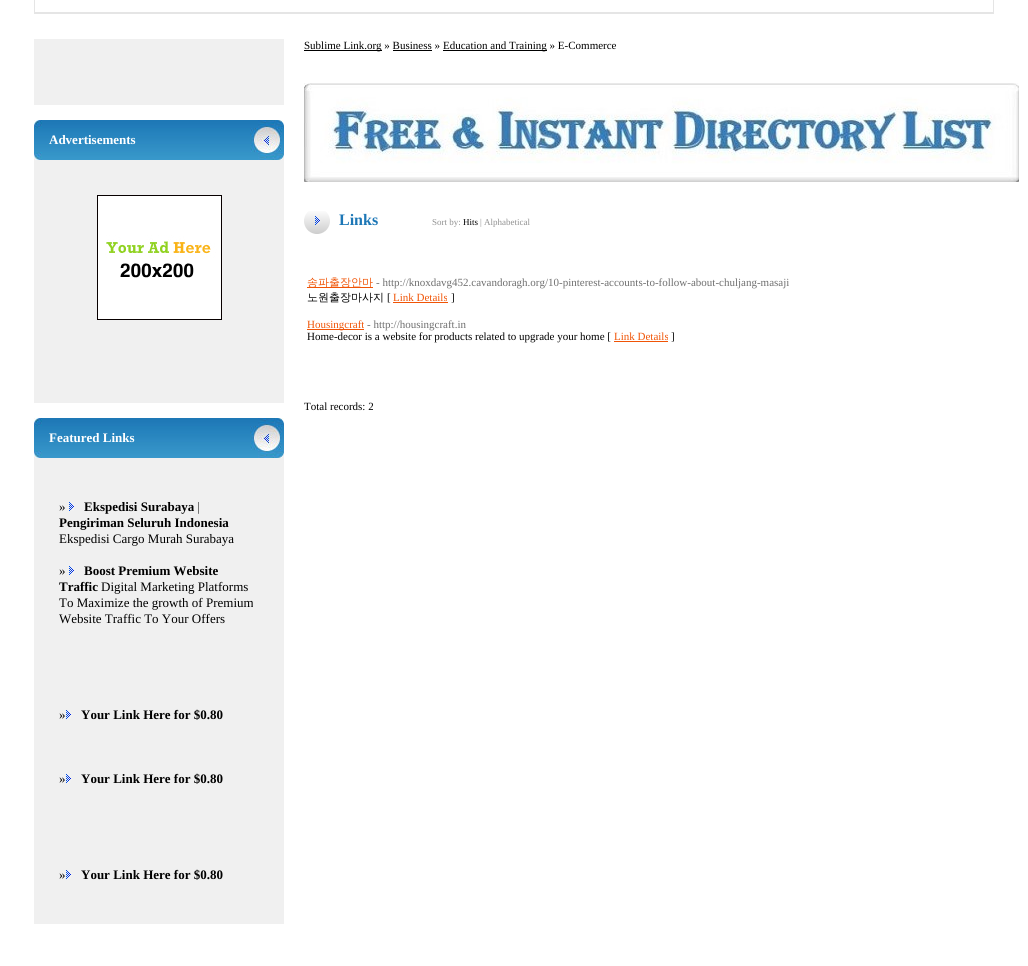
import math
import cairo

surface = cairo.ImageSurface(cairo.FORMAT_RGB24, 1028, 966)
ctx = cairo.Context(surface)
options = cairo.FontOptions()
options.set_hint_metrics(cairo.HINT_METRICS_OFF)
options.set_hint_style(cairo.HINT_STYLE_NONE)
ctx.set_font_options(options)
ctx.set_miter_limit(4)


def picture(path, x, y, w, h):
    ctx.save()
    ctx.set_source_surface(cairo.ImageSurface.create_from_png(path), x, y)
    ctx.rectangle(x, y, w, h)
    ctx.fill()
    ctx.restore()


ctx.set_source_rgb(1, 1, 1)
ctx.paint()
ctx.set_source_rgb(0.898, 0.898, 0.898)
ctx.rectangle(993, 0, 1, 14)
ctx.fill()
ctx.rectangle(34, 12, 960, 2)
ctx.fill()
ctx.rectangle(34, 0, 1, 14)
ctx.fill()
ctx.set_source_rgb(0.941, 0.941, 0.941)
ctx.rectangle(34, 39, 250, 66)
ctx.fill()
picture("img1.png", 34, 120, 250, 40)
ctx.select_font_face("Liberation Serif", cairo.FONT_SLANT_NORMAL, cairo.FONT_WEIGHT_BOLD)
ctx.set_font_size(13)
ctx.set_source_rgb(1, 1, 1)
ctx.move_to(49, 144)
ctx.show_text("Advertisements")
ctx.set_source_rgb(0.941, 0.941, 0.941)
ctx.rectangle(34, 160, 250, 243)
ctx.fill()
picture("img2.png", 97, 195, 125, 125)
picture("img1.png", 34, 418, 250, 40)
ctx.set_source_rgb(1, 1, 1)
ctx.move_to(49, 442)
ctx.show_text("Featured Links")
ctx.set_source_rgb(0.941, 0.941, 0.941)
ctx.rectangle(34, 458, 250, 466)
ctx.fill()
ctx.select_font_face("Liberation Serif")
ctx.set_source_rgb(0, 0, 0)
ctx.move_to(59, 511)
ctx.show_text("»")
picture("img3.png", 69, 502, 5, 9)
ctx.select_font_face("Liberation Serif", cairo.FONT_SLANT_NORMAL, cairo.FONT_WEIGHT_BOLD)
ctx.move_to(84, 511)
ctx.show_text("Ekspedisi Surabaya |")
ctx.move_to(59, 527)
ctx.show_text("Pengiriman Seluruh Indonesia")
ctx.select_font_face("Liberation Serif")
ctx.move_to(59, 543)
ctx.show_text("Ekspedisi Cargo Murah Surabaya")
ctx.move_to(59, 575)
ctx.show_text("»")
picture("img3.png", 69, 566, 5, 9)
ctx.select_font_face("Liberation Serif", cairo.FONT_SLANT_NORMAL, cairo.FONT_WEIGHT_BOLD)
ctx.move_to(84, 575)
ctx.show_text("Boost Premium Website")
ctx.move_to(59, 591)
ctx.show_text("Traffic")
ctx.select_font_face("Liberation Serif")
ctx.move_to(101, 591)
ctx.show_text("Digital Marketing Platforms")
ctx.move_to(59, 607)
ctx.show_text("To Maximize the growth of Premium")
ctx.move_to(59, 623)
ctx.show_text("Website Traffic To Your Offers")
ctx.move_to(59, 719)
ctx.show_text("»")
picture("img3.png", 66, 710, 5, 9)
ctx.select_font_face("Liberation Serif", cairo.FONT_SLANT_NORMAL, cairo.FONT_WEIGHT_BOLD)
ctx.move_to(81, 719)
ctx.show_text("Your Link Here for $0.80")
ctx.select_font_face("Liberation Serif")
ctx.move_to(59, 783)
ctx.show_text("»")
picture("img3.png", 66, 774, 5, 9)
ctx.select_font_face("Liberation Serif", cairo.FONT_SLANT_NORMAL, cairo.FONT_WEIGHT_BOLD)
ctx.move_to(81, 783)
ctx.show_text("Your Link Here for $0.80")
ctx.select_font_face("Liberation Serif")
ctx.move_to(59, 879)
ctx.show_text("»")
picture("img3.png", 66, 870, 5, 9)
ctx.select_font_face("Liberation Serif", cairo.FONT_SLANT_NORMAL, cairo.FONT_WEIGHT_BOLD)
ctx.move_to(81, 879)
ctx.show_text("Your Link Here for $0.80")
ctx.rectangle(304, 50, 78, 1)
ctx.fill()
ctx.select_font_face("Liberation Serif")
ctx.set_font_size(11)
ctx.move_to(304, 49)
ctx.show_text("Sublime Link.org » Business »")
ctx.rectangle(443, 50, 104, 1)
ctx.fill()
ctx.move_to(443, 49)
ctx.show_text("Education and Training » E-Commerce")
ctx.rectangle(393, 50, 39, 1)
ctx.fill()
picture("img4.png", 304, 83, 715, 99)
picture("img5.png", 304, 211, 26, 23)
ctx.select_font_face("Liberation Serif", cairo.FONT_SLANT_NORMAL, cairo.FONT_WEIGHT_BOLD)
ctx.set_font_size(16)
ctx.set_source_rgb(0.114, 0.467, 0.714)
ctx.move_to(339, 225)
ctx.show_text("Links")
ctx.select_font_face("Liberation Serif")
ctx.set_font_size(9)
ctx.set_source_rgb(0.565, 0.565, 0.565)
ctx.move_to(432, 225)
ctx.show_text("Sort by:")
ctx.set_source_rgb(0, 0, 0)
ctx.move_to(463, 225)
ctx.show_text("Hits")
ctx.set_source_rgb(0.565, 0.565, 0.565)
ctx.move_to(480, 225)
ctx.show_text("| Alphabetical")
ctx.set_source_rgb(0.941, 0.329, 0.027)
ctx.rectangle(307, 287, 66, 1)
ctx.fill()
ctx.select_font_face("WenQuanYi Zen Hei Medium")
ctx.set_font_size(11)
ctx.move_to(307, 286)
ctx.show_text("송파출장안마")
ctx.select_font_face("Liberation Serif")
ctx.set_source_rgb(0.435, 0.435, 0.435)
ctx.move_to(376, 286)
ctx.show_text("- http://knoxdavg452.cavandoragh.org/10-pinterest-accounts-to-follow-about-chuljang-masaji")
ctx.select_font_face("WenQuanYi Zen Hei Medium")
ctx.set_source_rgb(0, 0, 0)
ctx.move_to(307, 301)
ctx.show_text("노원출장마사지")
ctx.select_font_face("Liberation Serif")
ctx.move_to(387, 301)
ctx.show_text("[")
ctx.set_source_rgb(0.941, 0.329, 0.027)
ctx.move_to(393, 301)
ctx.show_text("Link Details")
ctx.rectangle(393, 302, 55, 1)
ctx.fill()
ctx.set_source_rgb(0, 0, 0)
ctx.move_to(451, 301)
ctx.show_text("]")
ctx.set_source_rgb(0.941, 0.329, 0.027)
ctx.rectangle(307, 329, 57, 1)
ctx.fill()
ctx.move_to(307, 328)
ctx.show_text("Housingcraft")
ctx.set_source_rgb(0.435, 0.435, 0.435)
ctx.move_to(367, 328)
ctx.show_text("- http://housingcraft.in")
ctx.set_source_rgb(0, 0, 0)
ctx.move_to(307, 340)
ctx.show_text("Home-decor is a website for products related to upgrade your home [")
ctx.set_source_rgb(0.941, 0.329, 0.027)
ctx.move_to(614, 340)
ctx.show_text("Link Details")
ctx.rectangle(614, 341, 54, 1)
ctx.fill()
ctx.set_source_rgb(0, 0, 0)
ctx.move_to(671, 340)
ctx.show_text("]")
ctx.move_to(304, 410)
ctx.show_text("Total records: 2")
surface.write_to_png("page.png")
